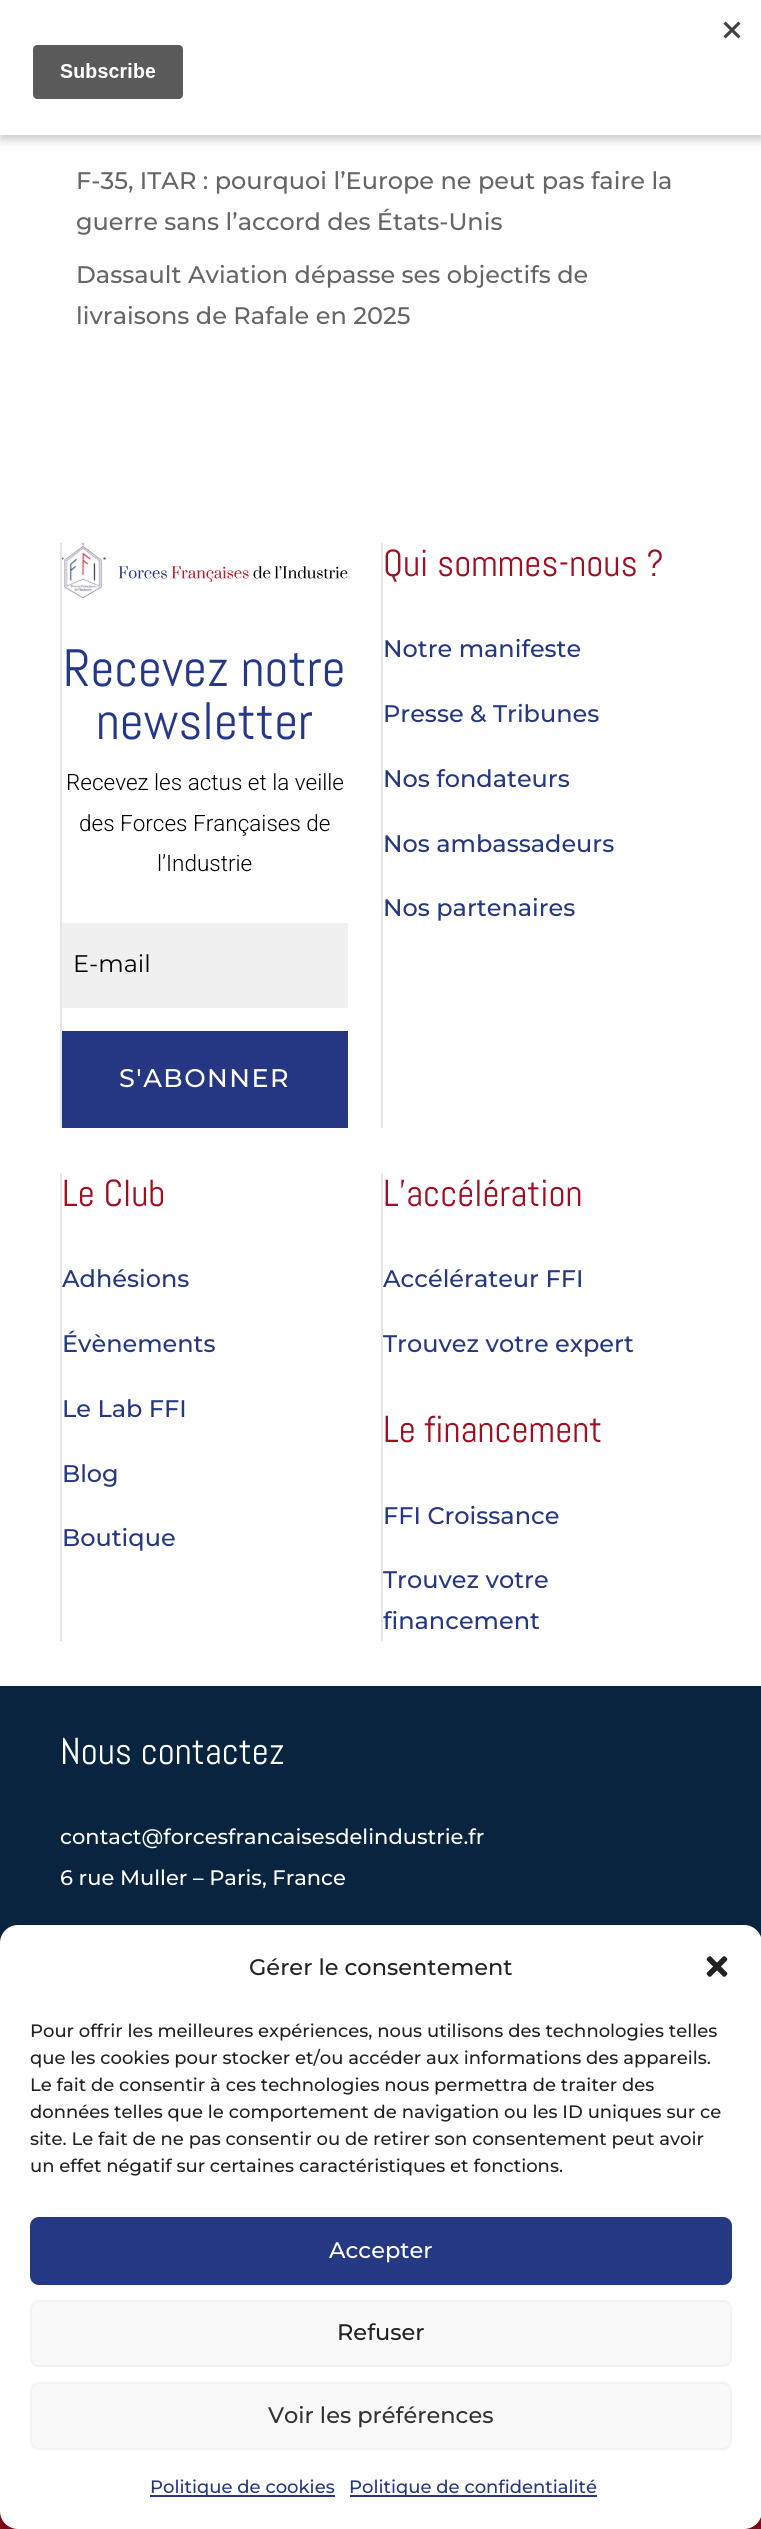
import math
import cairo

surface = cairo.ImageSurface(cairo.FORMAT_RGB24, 761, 2529)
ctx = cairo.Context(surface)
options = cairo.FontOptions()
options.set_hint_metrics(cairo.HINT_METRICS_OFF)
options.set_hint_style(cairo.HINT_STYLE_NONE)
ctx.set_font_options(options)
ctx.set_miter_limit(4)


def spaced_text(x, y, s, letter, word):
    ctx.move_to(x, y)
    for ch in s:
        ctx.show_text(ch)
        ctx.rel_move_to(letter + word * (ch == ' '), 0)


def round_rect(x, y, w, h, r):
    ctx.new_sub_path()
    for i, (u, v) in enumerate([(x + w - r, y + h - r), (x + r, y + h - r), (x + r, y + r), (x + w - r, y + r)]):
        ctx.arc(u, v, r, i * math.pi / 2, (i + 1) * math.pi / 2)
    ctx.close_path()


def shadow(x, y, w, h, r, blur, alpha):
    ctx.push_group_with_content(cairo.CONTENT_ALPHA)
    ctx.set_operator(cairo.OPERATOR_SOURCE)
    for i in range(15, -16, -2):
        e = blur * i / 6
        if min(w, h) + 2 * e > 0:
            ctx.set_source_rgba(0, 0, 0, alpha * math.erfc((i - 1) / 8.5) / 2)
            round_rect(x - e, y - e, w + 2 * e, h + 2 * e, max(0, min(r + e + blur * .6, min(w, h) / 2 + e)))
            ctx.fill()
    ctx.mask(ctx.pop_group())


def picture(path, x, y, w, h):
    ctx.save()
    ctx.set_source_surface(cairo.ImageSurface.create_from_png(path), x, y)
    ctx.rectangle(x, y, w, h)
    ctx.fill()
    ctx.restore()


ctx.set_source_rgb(1, 1, 1)
ctx.paint()
ctx.set_source_rgb(0, 0, 0)
shadow(0, 5, 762, 135, 0, 4.5, 0.2)
ctx.set_source_rgb(1, 1, 1)
ctx.rectangle(0, 0, 761, 135)
ctx.fill()
picture("img1.png", 32, 21, 709, 78)
ctx.select_font_face("Montserrat Thin")
ctx.set_font_size(24)
ctx.set_source_rgb(0.4, 0.4, 0.4)
ctx.move_to(76, 189)
ctx.show_text("F-35, ITAR : pourquoi l’Europe ne peut pas faire la")
ctx.move_to(76, 230)
ctx.show_text("guerre sans l’accord des États-Unis")
ctx.move_to(76, 283)
ctx.show_text("Dassault Aviation dépasse ses objectifs de")
ctx.move_to(76, 324)
ctx.show_text("livraisons de Rafale en 2025")
ctx.set_source_rgb(0.902, 0.902, 0.902)
ctx.rectangle(60, 543, 2, 585)
ctx.fill()
picture("img2.png", 62, 543, 286, 55)
ctx.select_font_face("Abel")
ctx.set_font_size(52.5)
ctx.set_source_rgb(0.145, 0.216, 0.537)
ctx.move_to(63, 686)
ctx.show_text("Recevez notre")
ctx.move_to(96, 739)
ctx.show_text("newsletter")
ctx.select_font_face("Roboto Light")
ctx.set_font_size(22.5)
ctx.set_source_rgb(0, 0, 0)
ctx.move_to(66, 790)
ctx.show_text("Recevez les actus et la veille")
ctx.move_to(79, 831)
ctx.show_text("des Forces Françaises de")
ctx.move_to(157, 871)
ctx.show_text("l’Industrie")
ctx.set_source_rgb(0.941, 0.941, 0.941)
ctx.rectangle(62, 923, 286, 85)
ctx.fill()
ctx.select_font_face("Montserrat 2 Thin")
ctx.set_font_size(24)
ctx.set_source_rgb(0, 0, 0)
ctx.move_to(73, 972)
ctx.show_text("E-mail")
ctx.set_source_rgb(0.145, 0.216, 0.514)
ctx.rectangle(62, 1031, 286, 97)
ctx.fill()
ctx.select_font_face("Montserrat Thin")
ctx.set_font_size(25.5)
ctx.set_source_rgb(1, 1, 1)
spaced_text(119, 1087, "S'ABONNER", 1.5, 0)
ctx.set_source_rgb(0.902, 0.902, 0.902)
ctx.rectangle(381, 543, 2, 585)
ctx.fill()
ctx.select_font_face("Abel")
ctx.set_font_size(37.5)
ctx.set_source_rgb(0.627, 0.055, 0.125)
ctx.move_to(383, 576)
ctx.show_text("Qui sommes-nous ?")
ctx.select_font_face("Montserrat Thin")
ctx.set_font_size(24)
ctx.set_source_rgb(0.145, 0.22, 0.51)
ctx.move_to(383, 657)
ctx.show_text("Notre manifeste")
ctx.move_to(383, 722)
ctx.show_text("Presse & Tribunes")
ctx.move_to(383, 787)
ctx.show_text("Nos fondateurs")
ctx.move_to(383, 852)
ctx.show_text("Nos ambassadeurs")
ctx.move_to(383, 916)
ctx.show_text("Nos partenaires")
ctx.set_source_rgb(0.902, 0.902, 0.902)
ctx.rectangle(60, 1173, 2, 468)
ctx.fill()
ctx.select_font_face("Abel")
ctx.set_font_size(37.5)
ctx.set_source_rgb(0.627, 0.055, 0.125)
ctx.move_to(62, 1206)
ctx.show_text("Le Club")
ctx.select_font_face("Montserrat Thin")
ctx.set_font_size(24)
ctx.set_source_rgb(0.145, 0.22, 0.51)
ctx.move_to(62, 1287)
ctx.show_text("Adhésions")
ctx.move_to(62, 1352)
ctx.show_text("Évènements")
ctx.move_to(62, 1417)
ctx.show_text("Le Lab FFI")
ctx.move_to(62, 1482)
ctx.show_text("Blog")
ctx.move_to(62, 1546)
ctx.show_text("Boutique")
ctx.set_source_rgb(0.902, 0.902, 0.902)
ctx.rectangle(381, 1173, 2, 468)
ctx.fill()
ctx.select_font_face("Abel")
ctx.set_font_size(37.5)
ctx.set_source_rgb(0.627, 0.055, 0.125)
ctx.move_to(383, 1206)
ctx.show_text("L’accélération")
ctx.select_font_face("Montserrat Thin")
ctx.set_font_size(24)
ctx.set_source_rgb(0.145, 0.22, 0.51)
ctx.move_to(383, 1287)
ctx.show_text("Accélérateur FFI")
ctx.move_to(383, 1352)
ctx.show_text("Trouvez votre expert")
ctx.select_font_face("Abel")
ctx.set_font_size(37.5)
ctx.set_source_rgb(0.627, 0.055, 0.125)
ctx.move_to(383, 1442)
ctx.show_text("Le financement")
ctx.select_font_face("Montserrat Thin")
ctx.set_font_size(24)
ctx.set_source_rgb(0.145, 0.22, 0.51)
ctx.move_to(383, 1524)
ctx.show_text("FFI Croissance")
ctx.move_to(383, 1588)
ctx.show_text("Trouvez votre")
ctx.move_to(383, 1629)
ctx.show_text("financement")
ctx.set_source_rgb(0.035, 0.141, 0.247)
ctx.rectangle(0, 1686, 761, 257)
ctx.fill()
ctx.select_font_face("Abel")
ctx.set_font_size(37.5)
ctx.set_source_rgb(1, 1, 1)
ctx.move_to(60, 1764)
ctx.show_text("Nous contactez")
ctx.select_font_face("Montserrat Thin")
ctx.set_font_size(21)
ctx.move_to(60, 1844)
ctx.show_text("contact@forcesfrancaisesdelindustrie.fr")
ctx.move_to(60, 1885)
ctx.show_text("6 rue Muller – Paris, France")
ctx.set_source_rgb(0.627, 0.055, 0.125)
ctx.rectangle(0, 2511, 761, 18)
ctx.fill()
ctx.set_source_rgb(0, 0, 0)
shadow(0, 1934, 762, 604, 18, 4.5, 0.23)
shadow(0, 1940, 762, 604, 18, 15, 0.19)
ctx.set_source_rgb(1, 1, 1)
round_rect(0, 1925, 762, 604, 18)
ctx.fill()
ctx.set_font_size(22.5)
ctx.set_source_rgb(0.133, 0.133, 0.133)
ctx.move_to(249, 1975)
ctx.show_text("Gérer le consentement")
picture("img3.png", 706, 1956, 22, 21)
ctx.set_font_size(18)
ctx.move_to(30, 2037)
ctx.show_text("Pour offrir les meilleures expériences, nous utilisons des technologies telles")
ctx.move_to(30, 2064)
ctx.show_text("que les cookies pour stocker et/ou accéder aux informations des appareils.")
ctx.move_to(30, 2091)
ctx.show_text("Le fait de consentir à ces technologies nous permettra de traiter des")
ctx.move_to(30, 2118)
ctx.show_text("données telles que le comportement de navigation ou les ID uniques sur ce")
ctx.move_to(30, 2145)
ctx.show_text("site. Le fait de ne pas consentir ou de retirer son consentement peut avoir")
ctx.move_to(30, 2172)
ctx.show_text("un effet négatif sur certaines caractéristiques et fonctions.")
ctx.set_source_rgb(0.145, 0.22, 0.51)
round_rect(31, 2218, 700, 66, 8)
ctx.fill_preserve()
ctx.stroke()
ctx.set_font_size(22.5)
ctx.set_source_rgb(1, 1, 1)
ctx.move_to(329, 2258)
ctx.show_text("Accepter")
ctx.set_source_rgb(0.976, 0.976, 0.976)
round_rect(31, 2301, 700, 65, 8)
ctx.fill_preserve()
ctx.set_source_rgb(0.949, 0.949, 0.949)
ctx.stroke()
ctx.set_source_rgb(0.133, 0.133, 0.133)
ctx.move_to(337, 2340)
ctx.show_text("Refuser")
ctx.set_source_rgb(0.976, 0.976, 0.976)
round_rect(31, 2383, 700, 66, 8)
ctx.fill_preserve()
ctx.set_source_rgb(0.949, 0.949, 0.949)
ctx.stroke()
ctx.set_source_rgb(0.2, 0.2, 0.2)
ctx.move_to(268, 2423)
ctx.show_text("Voir les préférences")
ctx.set_source_rgb(0.145, 0.22, 0.51)
ctx.rectangle(150, 2495, 185, 2)
ctx.fill()
ctx.set_font_size(18)
ctx.move_to(150, 2493)
ctx.show_text("Politique de cookies")
ctx.rectangle(350, 2495, 247, 2)
ctx.fill()
ctx.move_to(349, 2493)
ctx.show_text("Politique de confidentialité")
surface.write_to_png("page.png")
